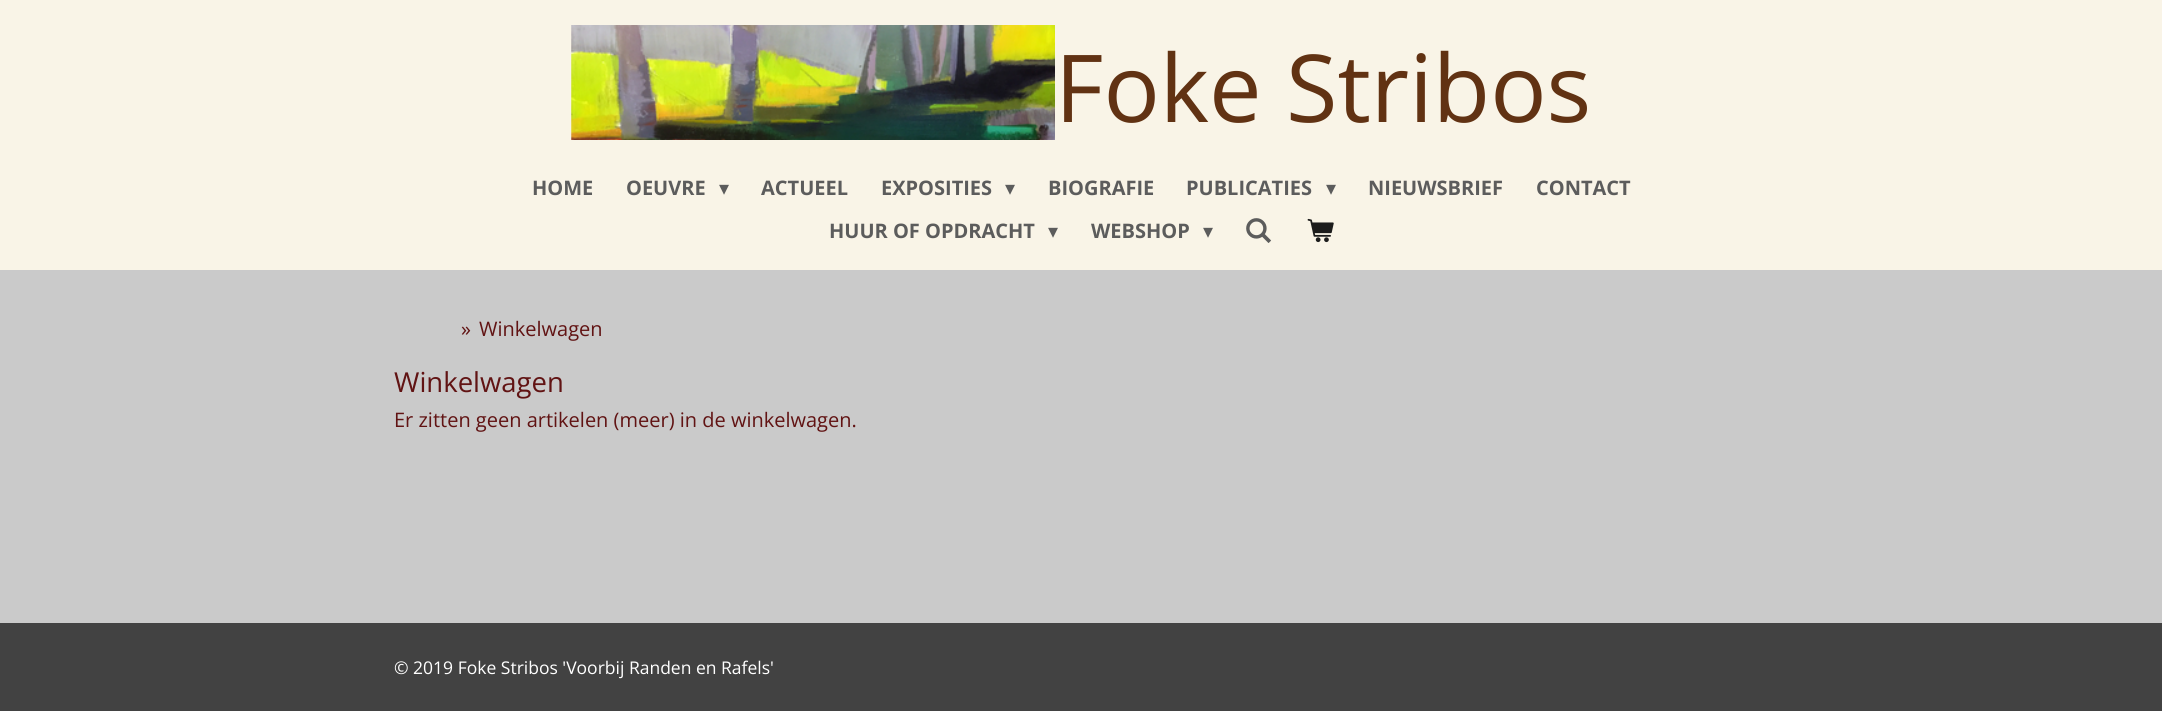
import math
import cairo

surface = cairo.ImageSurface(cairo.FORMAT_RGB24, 2162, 711)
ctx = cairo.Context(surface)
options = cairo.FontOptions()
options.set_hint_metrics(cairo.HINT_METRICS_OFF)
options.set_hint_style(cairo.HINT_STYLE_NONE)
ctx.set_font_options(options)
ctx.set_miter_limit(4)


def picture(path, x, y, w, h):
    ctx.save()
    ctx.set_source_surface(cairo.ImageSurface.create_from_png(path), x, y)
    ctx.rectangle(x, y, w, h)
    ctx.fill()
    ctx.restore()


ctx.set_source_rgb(0.792, 0.792, 0.792)
ctx.paint()
ctx.set_source_rgb(0.973, 0.957, 0.906)
ctx.rectangle(0, 0, 2162, 270)
ctx.fill()
picture("img1.png", 571, 25, 484, 115)
ctx.select_font_face("Open Sans")
ctx.set_font_size(93.75)
ctx.set_source_rgb(0.38, 0.196, 0.075)
ctx.move_to(1055, 122)
ctx.show_text("Foke Stribos")
ctx.select_font_face("Open Sans", cairo.FONT_SLANT_NORMAL, cairo.FONT_WEIGHT_BOLD)
ctx.set_font_size(20)
ctx.set_source_rgb(0.361, 0.361, 0.361)
ctx.move_to(532, 195)
ctx.show_text("HOME")
ctx.move_to(626, 195)
ctx.show_text("OEUVRE")
ctx.select_font_face("DejaVu Sans")
ctx.move_to(719, 195)
ctx.show_text("▾")
ctx.select_font_face("Open Sans", cairo.FONT_SLANT_NORMAL, cairo.FONT_WEIGHT_BOLD)
ctx.move_to(761, 195)
ctx.show_text("ACTUEEL")
ctx.move_to(881, 195)
ctx.show_text("EXPOSITIES")
ctx.select_font_face("DejaVu Sans")
ctx.move_to(1005, 195)
ctx.show_text("▾")
ctx.select_font_face("Open Sans", cairo.FONT_SLANT_NORMAL, cairo.FONT_WEIGHT_BOLD)
ctx.move_to(1048, 195)
ctx.show_text("BIOGRAFIE")
ctx.move_to(1186, 195)
ctx.show_text("PUBLICATIES")
ctx.select_font_face("DejaVu Sans")
ctx.move_to(1326, 195)
ctx.show_text("▾")
ctx.select_font_face("Open Sans", cairo.FONT_SLANT_NORMAL, cairo.FONT_WEIGHT_BOLD)
ctx.move_to(1368, 195)
ctx.show_text("NIEUWSBRIEF")
ctx.move_to(1536, 195)
ctx.show_text("CONTACT")
ctx.move_to(829, 238)
ctx.show_text("HUUR OF OPDRACHT")
ctx.select_font_face("DejaVu Sans")
ctx.move_to(1048, 238)
ctx.show_text("▾")
ctx.select_font_face("Open Sans", cairo.FONT_SLANT_NORMAL, cairo.FONT_WEIGHT_BOLD)
ctx.move_to(1091, 238)
ctx.show_text("WEBSHOP")
ctx.select_font_face("DejaVu Sans")
ctx.move_to(1203, 238)
ctx.show_text("▾")
picture("img2.png", 1246, 218, 26, 25)
picture("img3.png", 1307, 218, 27, 25)
ctx.select_font_face("Open Sans")
ctx.set_source_rgb(0.38, 0.075, 0.075)
ctx.move_to(461, 336)
ctx.show_text("»")
ctx.move_to(479, 336)
ctx.show_text("Winkelwagen")
ctx.set_font_size(27.5)
ctx.move_to(394, 392)
ctx.show_text("Winkelwagen")
ctx.set_font_size(20)
ctx.move_to(394, 427)
ctx.show_text("Er zitten geen artikelen (meer) in de winkelwagen.")
ctx.set_source_rgb(0.259, 0.259, 0.259)
ctx.rectangle(0, 623, 2162, 88)
ctx.fill()
ctx.set_font_size(17.5)
ctx.set_source_rgb(1, 1, 1)
ctx.move_to(394, 674)
ctx.show_text("© 2019 Foke Stribos 'Voorbij Randen en Rafels'")
surface.write_to_png("page.png")
